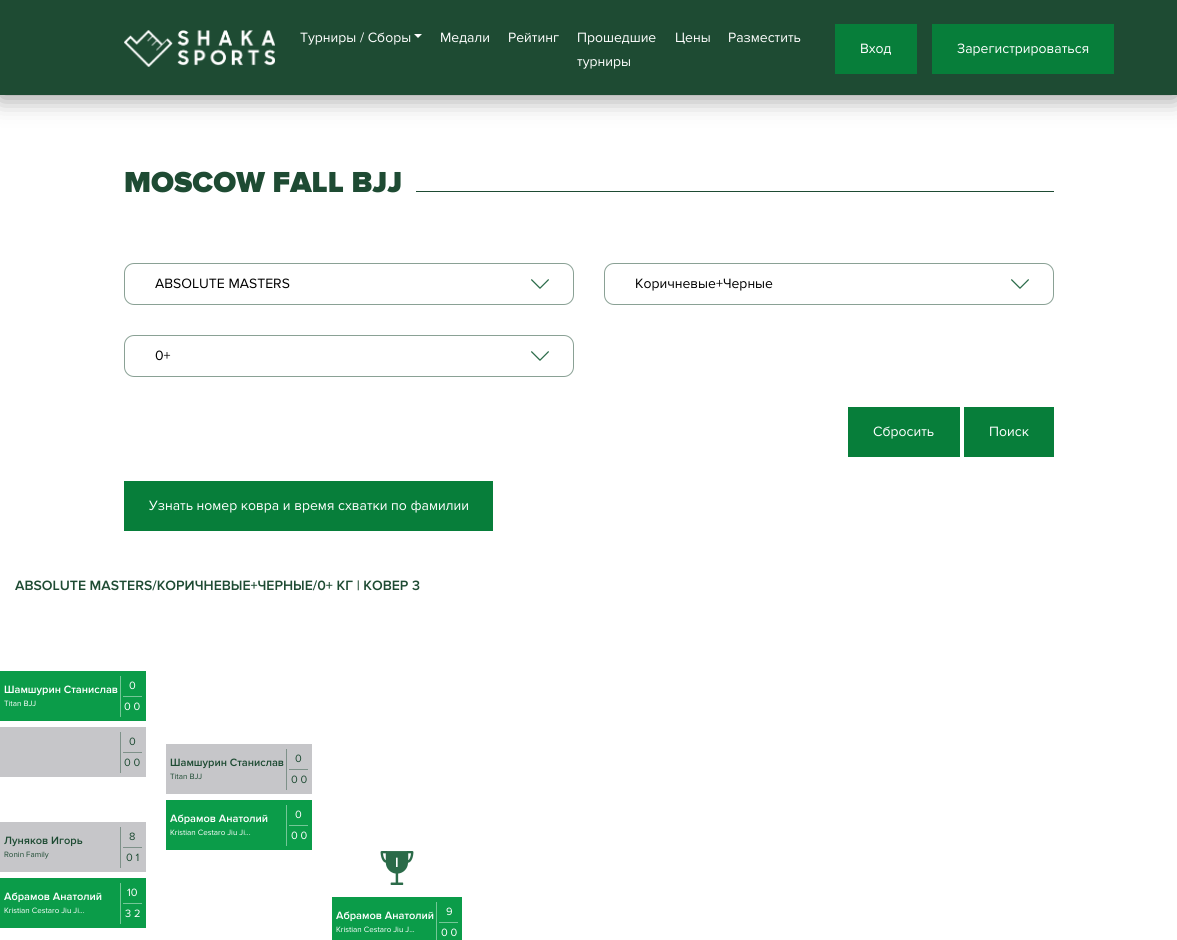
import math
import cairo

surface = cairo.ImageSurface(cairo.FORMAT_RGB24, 1177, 940)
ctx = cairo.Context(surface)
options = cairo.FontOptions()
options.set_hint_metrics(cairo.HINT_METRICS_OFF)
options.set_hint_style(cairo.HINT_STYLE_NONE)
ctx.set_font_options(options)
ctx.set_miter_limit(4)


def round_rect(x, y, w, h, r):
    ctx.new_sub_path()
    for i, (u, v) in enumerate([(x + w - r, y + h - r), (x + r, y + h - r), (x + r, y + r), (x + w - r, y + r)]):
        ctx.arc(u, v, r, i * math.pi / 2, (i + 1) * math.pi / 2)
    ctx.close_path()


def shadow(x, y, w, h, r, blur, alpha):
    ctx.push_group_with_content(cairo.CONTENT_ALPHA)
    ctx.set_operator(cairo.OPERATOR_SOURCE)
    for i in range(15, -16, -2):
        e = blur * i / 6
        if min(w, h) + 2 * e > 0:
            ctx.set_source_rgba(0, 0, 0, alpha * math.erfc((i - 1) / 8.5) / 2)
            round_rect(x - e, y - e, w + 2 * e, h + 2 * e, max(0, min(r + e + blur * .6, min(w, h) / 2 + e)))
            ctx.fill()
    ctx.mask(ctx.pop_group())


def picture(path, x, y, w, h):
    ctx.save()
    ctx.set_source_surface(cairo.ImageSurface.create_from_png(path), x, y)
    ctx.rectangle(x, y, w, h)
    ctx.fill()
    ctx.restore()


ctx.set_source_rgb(1, 1, 1)
ctx.paint()
ctx.set_source_rgb(0, 0, 0)
shadow(0, 3, 1177, 95, 0, 12, 0.42)
ctx.set_source_rgb(0.118, 0.294, 0.2)
ctx.rectangle(0, 0, 1177, 95)
ctx.fill()
picture("img1.png", 124, 30, 151, 37)
ctx.select_font_face("Proxima Nova")
ctx.set_font_size(14)
ctx.set_source_rgb(1, 1, 1)
ctx.move_to(300, 42)
ctx.show_text("Турниры / Сборы")
ctx.new_path()
ctx.move_to(414, 34)
ctx.line_to(422, 34)
ctx.line_to(418, 38)
ctx.close_path()
ctx.fill()
ctx.move_to(440, 42)
ctx.show_text("Медали")
ctx.move_to(508, 42)
ctx.show_text("Рейтинг")
ctx.move_to(577, 42)
ctx.show_text("Прошедшие")
ctx.move_to(577, 66)
ctx.show_text("турниры")
ctx.move_to(675, 42)
ctx.show_text("Цены")
ctx.move_to(728, 42)
ctx.show_text("Разместить")
ctx.set_source_rgb(0.031, 0.494, 0.227)
ctx.rectangle(835, 24, 82, 50)
ctx.fill()
ctx.set_source_rgb(1, 1, 1)
ctx.move_to(860, 53)
ctx.show_text("Вход")
ctx.set_source_rgb(0.031, 0.494, 0.227)
ctx.rectangle(932, 24, 182, 50)
ctx.fill()
ctx.set_source_rgb(1, 1, 1)
ctx.move_to(957, 53)
ctx.show_text("Зарегистрироваться")
ctx.select_font_face("Proxima Nova Black")
ctx.set_font_size(30)
ctx.set_source_rgb(0.118, 0.294, 0.2)
ctx.move_to(124, 192)
ctx.show_text("MOSCOW FALL BJJ")
ctx.rectangle(416, 191, 638, 1)
ctx.fill()
round_rect(124.5, 263.5, 449, 41, 9.5)
ctx.set_source_rgb(0.541, 0.631, 0.584)
ctx.set_line_width(1)
ctx.stroke()
ctx.select_font_face("Proxima Nova")
ctx.set_font_size(14)
ctx.set_source_rgb(0, 0, 0)
ctx.move_to(155, 288)
ctx.show_text("ABSOLUTE MASTERS")
picture("img2.png", 531, 279, 18, 10)
round_rect(604.5, 263.5, 449, 41, 9.5)
ctx.set_source_rgb(0.541, 0.631, 0.584)
ctx.stroke()
ctx.set_source_rgb(0, 0, 0)
ctx.move_to(635, 288)
ctx.show_text("Коричневые+Черные")
picture("img2.png", 1011, 279, 18, 10)
round_rect(124.5, 335.5, 449, 41, 9.5)
ctx.set_source_rgb(0.541, 0.631, 0.584)
ctx.stroke()
ctx.set_source_rgb(0, 0, 0)
ctx.move_to(155, 360)
ctx.show_text("0+")
picture("img2.png", 531, 351, 18, 10)
ctx.set_source_rgb(0.031, 0.494, 0.227)
ctx.rectangle(848, 407, 112, 50)
ctx.fill()
ctx.set_source_rgb(1, 1, 1)
ctx.move_to(873, 436)
ctx.show_text("Сбросить")
ctx.set_source_rgb(0.031, 0.494, 0.227)
ctx.rectangle(964, 407, 90, 50)
ctx.fill()
ctx.set_source_rgb(1, 1, 1)
ctx.move_to(989, 436)
ctx.show_text("Поиск")
ctx.set_source_rgb(0.031, 0.494, 0.227)
ctx.rectangle(124, 481, 369, 50)
ctx.fill()
ctx.set_source_rgb(1, 1, 1)
ctx.move_to(149, 510)
ctx.show_text("Узнать номер ковра и время схватки по фамилии")
ctx.select_font_face("Proxima Nova SemiBold")
ctx.set_source_rgb(0.118, 0.294, 0.2)
ctx.move_to(15, 590)
ctx.show_text("ABSOLUTE MASTERS/КОРИЧНЕВЫЕ+ЧЕРНЫЕ/0+ КГ | КОВЕР 3")
ctx.set_source_rgb(0.043, 0.612, 0.286)
ctx.rectangle(0, 671, 146, 50)
ctx.fill()
ctx.set_font_size(11)
ctx.set_source_rgb(1, 1, 1)
ctx.move_to(4, 693)
ctx.show_text("Шамшурин Станислав")
ctx.select_font_face("Proxima Nova")
ctx.set_font_size(8)
ctx.move_to(4, 706)
ctx.show_text("Titan BJJ")
ctx.set_source_rgb(0.455, 0.78, 0.592)
ctx.rectangle(120, 676, 1, 41)
ctx.fill()
ctx.set_font_size(11)
ctx.set_source_rgb(1, 1, 1)
ctx.move_to(129, 689)
ctx.show_text("0")
ctx.set_source_rgb(0.455, 0.78, 0.592)
ctx.rectangle(123, 696, 19, 1)
ctx.fill()
ctx.set_source_rgb(1, 1, 1)
ctx.move_to(124, 710)
ctx.show_text("0 0")
ctx.set_source_rgb(0.776, 0.776, 0.788)
ctx.rectangle(0, 727, 146, 50)
ctx.fill()
ctx.set_source_rgb(0.494, 0.569, 0.537)
ctx.rectangle(120, 732, 1, 41)
ctx.fill()
ctx.set_source_rgb(0.118, 0.294, 0.2)
ctx.move_to(129, 745)
ctx.show_text("0")
ctx.set_source_rgb(0.494, 0.569, 0.537)
ctx.rectangle(123, 752, 19, 1)
ctx.fill()
ctx.set_source_rgb(0.118, 0.294, 0.2)
ctx.move_to(124, 766)
ctx.show_text("0 0")
ctx.set_source_rgb(0.776, 0.776, 0.788)
ctx.rectangle(0, 822, 146, 50)
ctx.fill()
ctx.select_font_face("Proxima Nova SemiBold")
ctx.set_source_rgb(0.118, 0.294, 0.2)
ctx.move_to(4, 844)
ctx.show_text("Луняков Игорь")
ctx.select_font_face("Proxima Nova")
ctx.set_font_size(8)
ctx.move_to(4, 857)
ctx.show_text("Ronin Family")
ctx.set_source_rgb(0.494, 0.569, 0.537)
ctx.rectangle(120, 827, 1, 41)
ctx.fill()
ctx.set_font_size(11)
ctx.set_source_rgb(0.118, 0.294, 0.2)
ctx.move_to(129, 840)
ctx.show_text("8")
ctx.set_source_rgb(0.494, 0.569, 0.537)
ctx.rectangle(123, 847, 19, 1)
ctx.fill()
ctx.set_source_rgb(0.118, 0.294, 0.2)
ctx.move_to(126, 861)
ctx.show_text("0 1")
ctx.set_source_rgb(0.043, 0.612, 0.286)
ctx.rectangle(0, 878, 146, 50)
ctx.fill()
ctx.select_font_face("Proxima Nova SemiBold")
ctx.set_source_rgb(1, 1, 1)
ctx.move_to(4, 900)
ctx.show_text("Абрамов Анатолий")
ctx.select_font_face("Proxima Nova")
ctx.set_font_size(8)
ctx.move_to(4, 913)
ctx.show_text("Kristian Cestaro Jiu Ji...")
ctx.set_source_rgb(0.455, 0.78, 0.592)
ctx.rectangle(120, 883, 1, 41)
ctx.fill()
ctx.set_font_size(11)
ctx.set_source_rgb(1, 1, 1)
ctx.move_to(127, 896)
ctx.show_text("10")
ctx.set_source_rgb(0.455, 0.78, 0.592)
ctx.rectangle(123, 903, 19, 1)
ctx.fill()
ctx.set_source_rgb(1, 1, 1)
ctx.move_to(125, 917)
ctx.show_text("3 2")
ctx.set_source_rgb(0.776, 0.776, 0.788)
ctx.rectangle(166, 744, 146, 50)
ctx.fill()
ctx.select_font_face("Proxima Nova SemiBold")
ctx.set_source_rgb(0.118, 0.294, 0.2)
ctx.move_to(170, 766)
ctx.show_text("Шамшурин Станислав")
ctx.select_font_face("Proxima Nova")
ctx.set_font_size(8)
ctx.move_to(170, 779)
ctx.show_text("Titan BJJ")
ctx.set_source_rgb(0.494, 0.569, 0.537)
ctx.rectangle(286, 749, 1, 41)
ctx.fill()
ctx.set_font_size(11)
ctx.set_source_rgb(0.118, 0.294, 0.2)
ctx.move_to(295, 762)
ctx.show_text("0")
ctx.set_source_rgb(0.494, 0.569, 0.537)
ctx.rectangle(289, 769, 19, 1)
ctx.fill()
ctx.set_source_rgb(0.118, 0.294, 0.2)
ctx.move_to(291, 783)
ctx.show_text("0 0")
ctx.set_source_rgb(0.043, 0.612, 0.286)
ctx.rectangle(166, 800, 146, 50)
ctx.fill()
ctx.select_font_face("Proxima Nova SemiBold")
ctx.set_source_rgb(1, 1, 1)
ctx.move_to(170, 822)
ctx.show_text("Абрамов Анатолий")
ctx.select_font_face("Proxima Nova")
ctx.set_font_size(8)
ctx.move_to(170, 835)
ctx.show_text("Kristian Cestaro Jiu Ji...")
ctx.set_source_rgb(0.455, 0.78, 0.592)
ctx.rectangle(286, 805, 1, 41)
ctx.fill()
ctx.set_font_size(11)
ctx.set_source_rgb(1, 1, 1)
ctx.move_to(295, 818)
ctx.show_text("0")
ctx.set_source_rgb(0.455, 0.78, 0.592)
ctx.rectangle(289, 825, 19, 1)
ctx.fill()
ctx.set_source_rgb(1, 1, 1)
ctx.move_to(291, 839)
ctx.show_text("0 0")
picture("img3.png", 380, 851, 34, 34)
ctx.select_font_face("Proxima Nova SemiBold")
ctx.set_font_size(14)
ctx.move_to(395, 867)
ctx.show_text("I")
ctx.set_source_rgb(0.043, 0.612, 0.286)
ctx.rectangle(332, 897, 130, 43)
ctx.fill()
ctx.set_font_size(11)
ctx.set_source_rgb(1, 1, 1)
ctx.move_to(336, 919)
ctx.show_text("Абрамов Анатолий")
ctx.select_font_face("Proxima Nova")
ctx.set_font_size(8)
ctx.move_to(336, 932)
ctx.show_text("Kristian Cestaro Jiu J...")
ctx.set_source_rgb(0.455, 0.78, 0.592)
ctx.rectangle(436, 902, 1, 38)
ctx.fill()
ctx.set_font_size(11)
ctx.set_source_rgb(1, 1, 1)
ctx.move_to(446, 915)
ctx.show_text("9")
ctx.set_source_rgb(0.455, 0.78, 0.592)
ctx.rectangle(439, 922, 19, 1)
ctx.fill()
ctx.set_source_rgb(1, 1, 1)
ctx.move_to(441, 936)
ctx.show_text("0 0")
surface.write_to_png("page.png")
